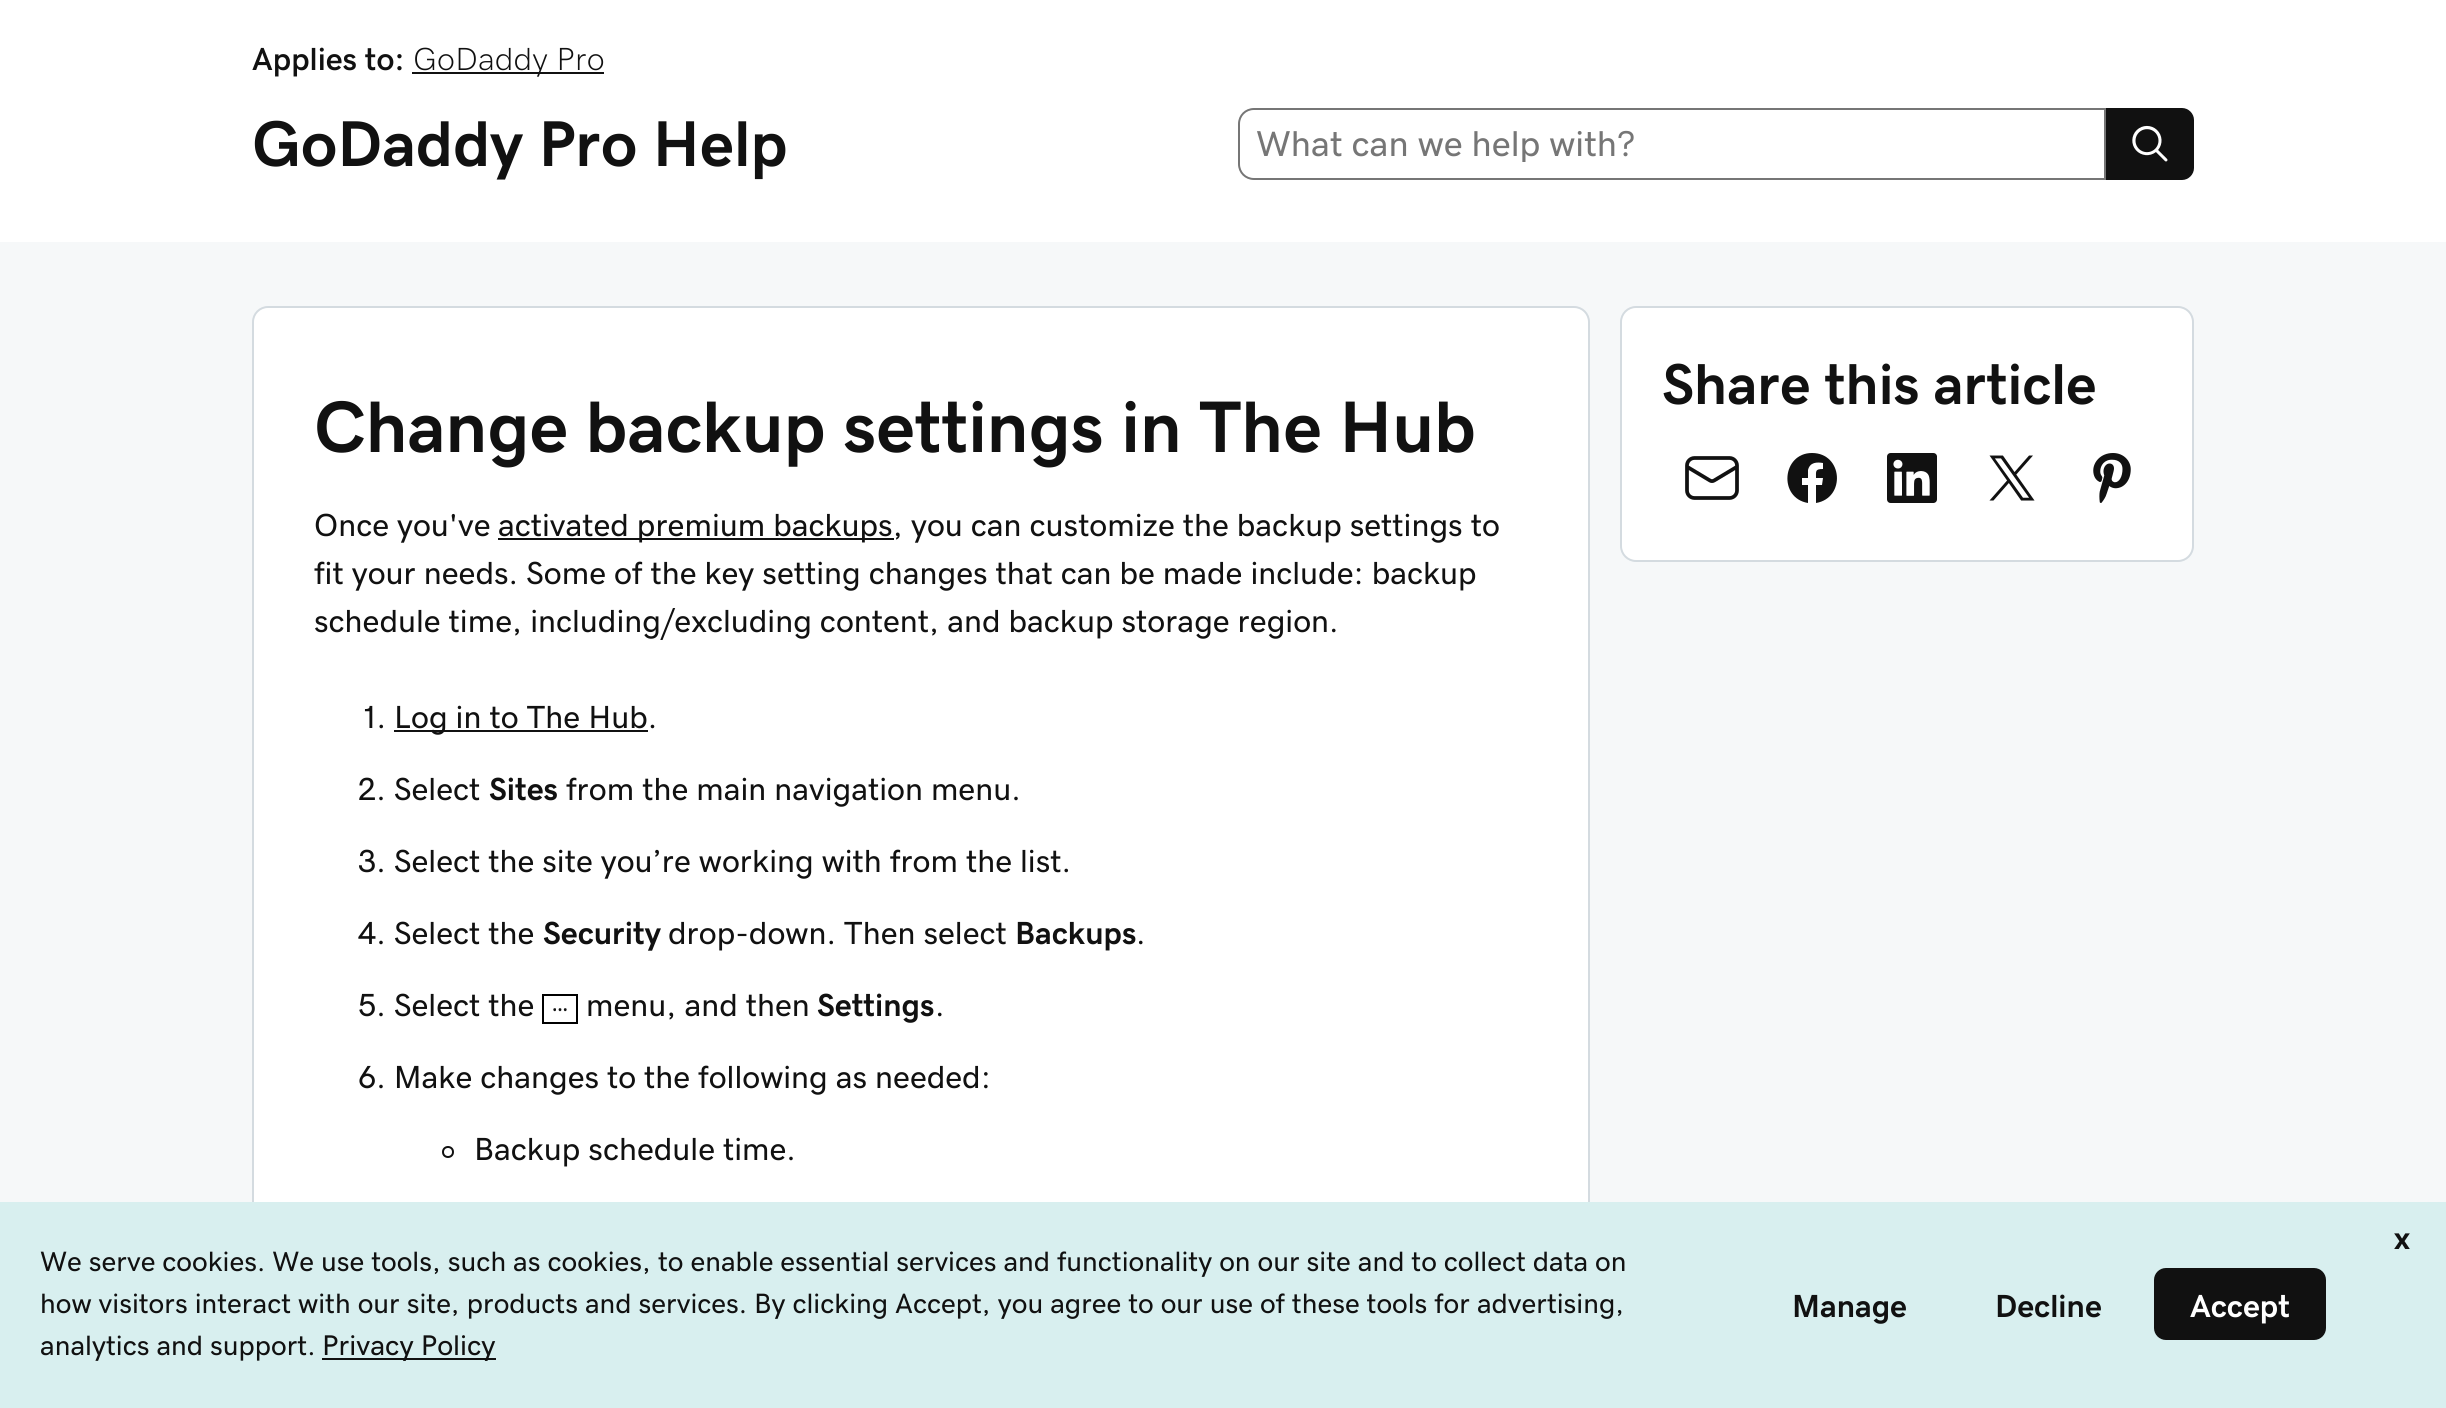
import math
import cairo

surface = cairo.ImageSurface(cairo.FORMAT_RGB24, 2446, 1408)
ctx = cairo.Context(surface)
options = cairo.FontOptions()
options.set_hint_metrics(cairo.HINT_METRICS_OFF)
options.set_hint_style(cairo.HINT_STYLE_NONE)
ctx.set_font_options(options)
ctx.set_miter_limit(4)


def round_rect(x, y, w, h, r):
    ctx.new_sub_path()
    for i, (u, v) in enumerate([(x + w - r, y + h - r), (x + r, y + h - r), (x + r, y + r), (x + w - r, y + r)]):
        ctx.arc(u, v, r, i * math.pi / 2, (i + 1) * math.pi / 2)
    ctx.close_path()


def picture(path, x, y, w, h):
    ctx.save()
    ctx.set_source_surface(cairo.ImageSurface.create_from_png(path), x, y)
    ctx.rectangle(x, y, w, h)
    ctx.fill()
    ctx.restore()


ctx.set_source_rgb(1, 1, 1)
ctx.paint()
ctx.select_font_face("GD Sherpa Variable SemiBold")
ctx.set_font_size(32)
ctx.set_source_rgb(0.067, 0.067, 0.067)
ctx.move_to(252, 70)
ctx.show_text("Applies to:")
ctx.rectangle(412, 72, 192, 2)
ctx.fill()
ctx.select_font_face("GD Sherpa Variable ExtraLight")
ctx.move_to(413, 70)
ctx.show_text("GoDaddy Pro")
ctx.select_font_face("GD Sherpa Variable", cairo.FONT_SLANT_NORMAL, cairo.FONT_WEIGHT_BOLD)
ctx.set_font_size(64.75)
ctx.move_to(252, 166)
ctx.show_text("GoDaddy Pro Help")
ctx.new_path()
ctx.move_to(1254, 109)
ctx.line_to(2105, 109)
ctx.line_to(2105, 179)
ctx.line_to(1254, 179)
ctx.curve_to(1245.5, 179, 1239, 172.5, 1239, 164)
ctx.line_to(1239, 124)
ctx.curve_to(1239, 115.5, 1245.5, 109, 1254, 109)
ctx.close_path()
ctx.set_source_rgb(0.463, 0.463, 0.463)
ctx.stroke()
ctx.save()
ctx.rectangle(1256, 126, 832, 36)
ctx.clip()
ctx.select_font_face("GD Sherpa Variable")
ctx.set_font_size(36)
ctx.move_to(1256, 156)
ctx.show_text("What can we help with?")
ctx.restore()
ctx.set_source_rgb(0.067, 0.067, 0.067)
ctx.new_path()
ctx.move_to(2106, 108)
ctx.line_to(2182, 108)
ctx.curve_to(2188.5, 108, 2194, 113.5, 2194, 120)
ctx.line_to(2194, 168)
ctx.curve_to(2194, 174.5, 2188.5, 180, 2182, 180)
ctx.line_to(2106, 180)
ctx.close_path()
ctx.fill()
picture("img1.png", 2132, 125, 36, 37)
ctx.set_source_rgb(0.961, 0.969, 0.973)
ctx.rectangle(0, 242, 2446, 960)
ctx.fill()
ctx.set_source_rgb(1, 1, 1)
round_rect(1621, 307, 572, 254, 15)
ctx.fill_preserve()
ctx.set_source_rgb(0.831, 0.859, 0.878)
ctx.stroke()
ctx.select_font_face("GD Sherpa Variable ExtraBold")
ctx.set_font_size(57.75)
ctx.set_source_rgb(0.067, 0.067, 0.067)
ctx.move_to(1662, 404)
ctx.show_text("Share this article")
picture("img2.png", 1685, 456, 54, 44)
ctx.set_fill_rule(cairo.FILL_RULE_EVEN_ODD)
ctx.new_path()
ctx.move_to(1812, 453)
ctx.curve_to(1782, 453, 1778, 498, 1808, 503)
ctx.line_to(1808, 485)
ctx.line_to(1802, 485)
ctx.line_to(1802, 478)
ctx.line_to(1808, 478)
ctx.line_to(1808, 470)
ctx.curve_to(1810, 462, 1817, 462, 1823, 463)
ctx.line_to(1823, 469)
ctx.curve_to(1815, 469, 1816, 471, 1816, 478)
ctx.line_to(1823, 478)
ctx.line_to(1822, 485)
ctx.line_to(1816, 485)
ctx.line_to(1816, 503)
ctx.curve_to(1846, 498, 1843, 453, 1812, 453)
ctx.close_path()
ctx.fill()
picture("img3.png", 1887, 453, 50, 50)
picture("img4.png", 1989, 455, 46, 46)
picture("img5.png", 2093, 453, 38, 50)
ctx.set_source_rgb(1, 1, 1)
round_rect(253, 307, 1336, 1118, 15)
ctx.fill_preserve()
ctx.set_source_rgb(0.831, 0.859, 0.878)
ctx.stroke()
ctx.set_font_size(73)
ctx.set_source_rgb(0.067, 0.067, 0.067)
ctx.move_to(314, 452)
ctx.show_text("Change backup settings in The Hub")
ctx.select_font_face("GD Sherpa Variable")
ctx.set_font_size(32)
ctx.move_to(314, 536)
ctx.show_text("Once you've")
ctx.rectangle(498, 538, 396, 2)
ctx.fill()
ctx.move_to(498, 536)
ctx.show_text("activated premium backups, you can customize the backup settings to")
ctx.move_to(314, 584)
ctx.show_text("fit your needs. Some of the key setting changes that can be made include: backup")
ctx.move_to(314, 632)
ctx.show_text("schedule time, including/excluding content, and backup storage region.")
ctx.move_to(362, 728)
ctx.show_text("1.")
ctx.rectangle(394, 730, 254, 2)
ctx.fill()
ctx.move_to(394, 728)
ctx.show_text("Log in to The Hub.")
ctx.move_to(358, 800)
ctx.show_text("2. Select")
ctx.select_font_face("GD Sherpa Variable", cairo.FONT_SLANT_NORMAL, cairo.FONT_WEIGHT_BOLD)
ctx.move_to(489, 800)
ctx.show_text("Sites")
ctx.select_font_face("GD Sherpa Variable")
ctx.move_to(566, 800)
ctx.show_text("from the main navigation menu.")
ctx.move_to(358, 872)
ctx.show_text("3. Select the site you’re working with from the list.")
ctx.move_to(358, 944)
ctx.show_text("4. Select the")
ctx.select_font_face("GD Sherpa Variable", cairo.FONT_SLANT_NORMAL, cairo.FONT_WEIGHT_BOLD)
ctx.move_to(543, 944)
ctx.show_text("Security")
ctx.select_font_face("GD Sherpa Variable")
ctx.move_to(668, 944)
ctx.show_text("drop-down. Then select")
ctx.select_font_face("GD Sherpa Variable", cairo.FONT_SLANT_NORMAL, cairo.FONT_WEIGHT_BOLD)
ctx.move_to(1015, 944)
ctx.show_text("Backups")
ctx.select_font_face("GD Sherpa Variable")
ctx.move_to(1136, 944)
ctx.show_text(".")
ctx.move_to(358, 1016)
ctx.show_text("5. Select the")
ctx.rectangle(543, 995, 34, 28)
ctx.set_source_rgb(0, 0, 0)
ctx.stroke()
ctx.set_source_rgb(0.067, 0.067, 0.067)
ctx.move_to(586, 1016)
ctx.show_text("menu, and then")
ctx.select_font_face("GD Sherpa Variable", cairo.FONT_SLANT_NORMAL, cairo.FONT_WEIGHT_BOLD)
ctx.move_to(817, 1016)
ctx.show_text("Settings")
picture("img6.png", 553, 1008, 14, 4)
ctx.select_font_face("GD Sherpa Variable")
ctx.move_to(935, 1016)
ctx.show_text(".")
ctx.move_to(358, 1088)
ctx.show_text("6. Make changes to the following as needed:")
ctx.new_path()
ctx.arc(448, 1152, 5, 0, 2 * math.pi)
ctx.stroke()
ctx.move_to(474, 1160)
ctx.show_text("Backup schedule time.")
ctx.set_source_rgb(0.847, 0.937, 0.937)
ctx.rectangle(0, 1202, 2446, 206)
ctx.fill()
ctx.select_font_face("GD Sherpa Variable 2", cairo.FONT_SLANT_NORMAL, cairo.FONT_WEIGHT_BOLD)
ctx.set_source_rgb(0.067, 0.067, 0.067)
ctx.move_to(2394, 1249)
ctx.show_text("x")
ctx.select_font_face("GD Sherpa Variable")
ctx.set_font_size(28)
ctx.move_to(40, 1271)
ctx.show_text("We serve cookies. We use tools, such as cookies, to enable essential services and functionality on our site and to collect data on")
ctx.move_to(40, 1313)
ctx.show_text("how visitors interact with our site, products and services. By clicking Accept, you agree to our use of these tools for advertising,")
ctx.move_to(40, 1355)
ctx.show_text("analytics and support.")
ctx.rectangle(322, 1358, 174, 2)
ctx.fill()
ctx.set_font_size(28.5)
ctx.move_to(322, 1355)
ctx.show_text("Privacy Policy")
ctx.select_font_face("GD Sherpa Variable 2", cairo.FONT_SLANT_NORMAL, cairo.FONT_WEIGHT_BOLD)
ctx.set_font_size(32)
ctx.move_to(1792, 1317)
ctx.show_text("Manage")
ctx.move_to(1995, 1317)
ctx.show_text("Decline")
round_rect(2154, 1268, 172, 72, 12)
ctx.fill()
ctx.set_source_rgb(1, 1, 1)
ctx.move_to(2190, 1317)
ctx.show_text("Accept")
surface.write_to_png("page.png")
